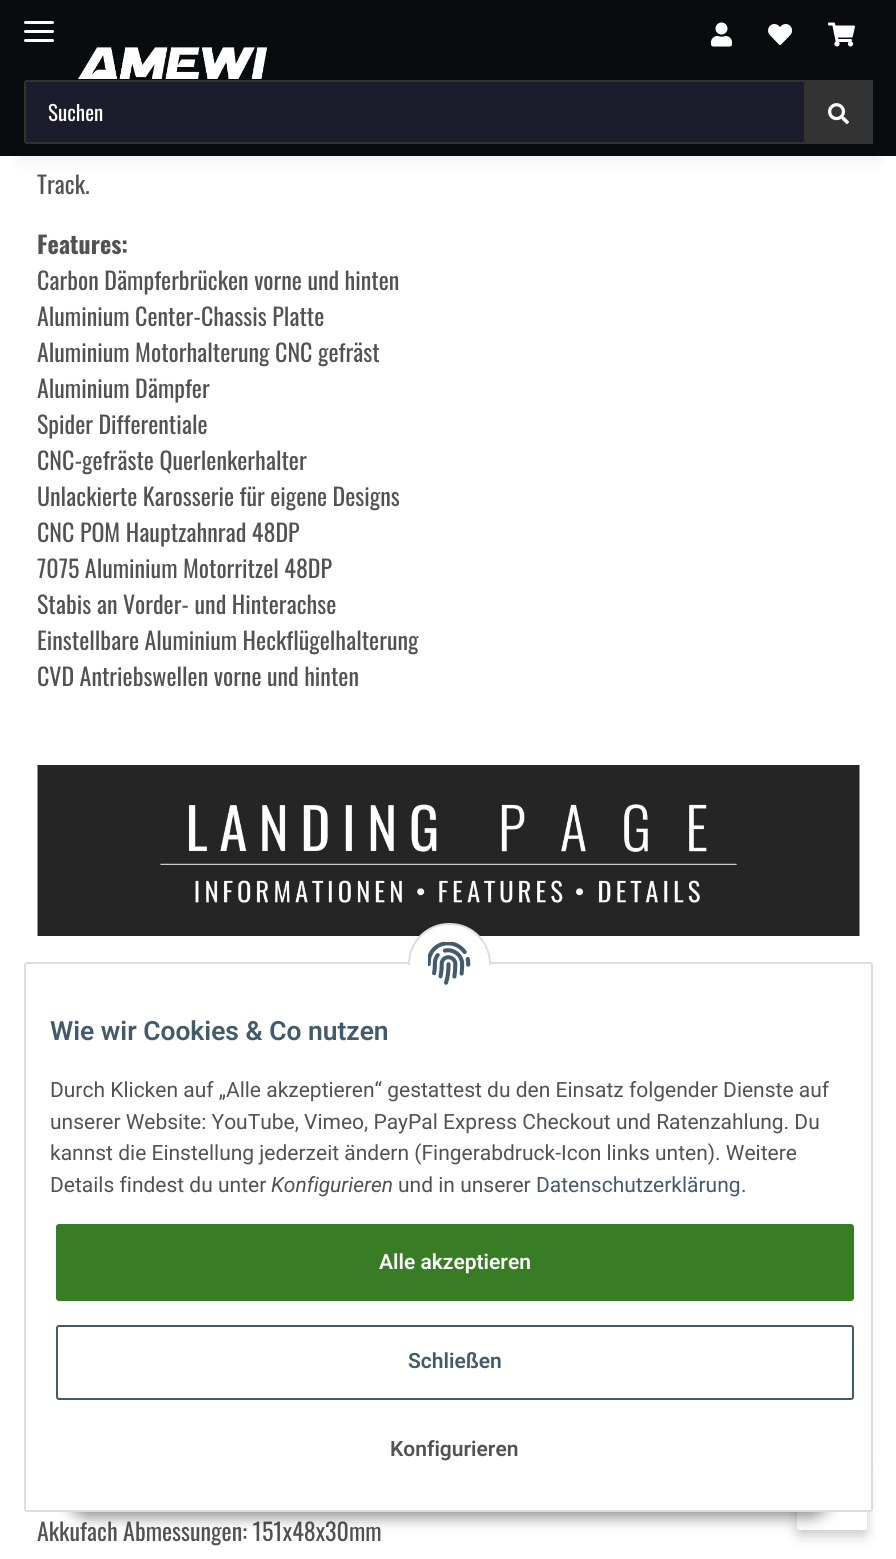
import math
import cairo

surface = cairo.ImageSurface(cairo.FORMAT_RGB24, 896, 1559)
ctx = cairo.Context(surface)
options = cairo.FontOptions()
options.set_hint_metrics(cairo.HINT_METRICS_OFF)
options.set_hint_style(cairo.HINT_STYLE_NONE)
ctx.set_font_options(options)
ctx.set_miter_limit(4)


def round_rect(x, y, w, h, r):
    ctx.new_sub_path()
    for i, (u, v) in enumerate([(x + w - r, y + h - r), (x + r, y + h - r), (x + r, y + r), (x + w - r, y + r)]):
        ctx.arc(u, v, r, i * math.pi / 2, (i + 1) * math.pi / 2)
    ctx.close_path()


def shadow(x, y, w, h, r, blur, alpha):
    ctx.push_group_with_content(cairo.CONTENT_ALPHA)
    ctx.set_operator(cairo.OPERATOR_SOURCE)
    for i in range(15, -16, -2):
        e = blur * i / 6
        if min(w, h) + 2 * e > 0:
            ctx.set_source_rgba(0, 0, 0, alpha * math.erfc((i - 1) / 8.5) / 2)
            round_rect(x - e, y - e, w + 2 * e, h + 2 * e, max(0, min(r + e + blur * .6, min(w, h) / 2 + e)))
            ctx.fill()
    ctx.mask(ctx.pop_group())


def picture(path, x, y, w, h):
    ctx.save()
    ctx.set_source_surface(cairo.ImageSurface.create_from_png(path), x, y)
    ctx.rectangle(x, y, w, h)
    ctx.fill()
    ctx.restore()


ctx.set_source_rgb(1, 1, 1)
ctx.paint()
ctx.set_source_rgb(0, 0, 0)
shadow(18, 42, 861, 120, 0, 7, 0.06)
ctx.set_source_rgb(0.039, 0.047, 0.059)
ctx.rectangle(0, 0, 896, 156)
ctx.fill()
ctx.set_source_rgb(1, 1, 1)
round_rect(24, 30, 30, 3, 1.5)
ctx.fill()
round_rect(24, 21, 30, 3, 1.5)
ctx.fill()
round_rect(24, 39, 30, 3, 1.5)
ctx.fill()
picture("img1.png", 78, 47, 189, 32)
picture("img2.png", 711, 22, 21, 25)
picture("img3.png", 768, 24, 25, 21)
picture("img4.png", 828, 22, 27, 25)
ctx.set_source_rgb(0.11, 0.114, 0.173)
ctx.rectangle(26, 82, 778, 60)
ctx.fill()
round_rect(25, 81, 780, 62, 2)
ctx.set_source_rgb(0.2, 0.2, 0.2)
ctx.stroke()
ctx.select_font_face("Oswald")
ctx.set_font_size(21)
ctx.set_source_rgb(1, 1, 1)
ctx.move_to(48, 121)
ctx.show_text("Suchen")
ctx.set_source_rgb(0.2, 0.2, 0.2)
ctx.rectangle(804, 80, 69, 64)
ctx.fill()
picture("img5.png", 828, 103, 21, 22)
ctx.set_font_size(24)
ctx.set_source_rgb(0.322, 0.322, 0.322)
ctx.move_to(37, 194)
ctx.show_text("Track.")
ctx.select_font_face("Oswald", cairo.FONT_SLANT_NORMAL, cairo.FONT_WEIGHT_BOLD)
ctx.move_to(37, 254)
ctx.show_text("Features:")
ctx.select_font_face("Oswald")
ctx.move_to(37, 290)
ctx.show_text("Carbon Dämpferbrücken vorne und hinten")
ctx.move_to(37, 326)
ctx.show_text("Aluminium Center-Chassis Platte")
ctx.move_to(37, 362)
ctx.show_text("Aluminium Motorhalterung CNC gefräst")
ctx.move_to(37, 398)
ctx.show_text("Aluminium Dämpfer")
ctx.move_to(37, 434)
ctx.show_text("Spider Differentiale")
ctx.move_to(37, 470)
ctx.show_text("CNC-gefräste Querlenkerhalter")
ctx.move_to(37, 506)
ctx.show_text("Unlackierte Karosserie für eigene Designs")
ctx.move_to(37, 542)
ctx.show_text("CNC POM Hauptzahnrad 48DP")
ctx.move_to(37, 578)
ctx.show_text("7075 Aluminium Motorritzel 48DP")
ctx.move_to(37, 614)
ctx.show_text("Stabis an Vorder- und Hinterachse")
ctx.move_to(37, 650)
ctx.show_text("Einstellbare Aluminium Heckflügelhalterung")
ctx.move_to(37, 686)
ctx.show_text("CVD Antriebswellen vorne und hinten")
picture("img6.png", 37, 765, 823, 171)
ctx.move_to(37, 1541)
ctx.show_text("Akkufach Abmessungen: 151x48x30mm")
ctx.set_source_rgb(0, 0, 0)
shadow(797, 1470, 70, 66, 3, 6, 0.2)
ctx.set_source_rgb(1, 1, 1)
round_rect(797, 1464, 70, 66, 3)
ctx.fill()
ctx.set_source_rgb(0, 0, 0)
shadow(68, 1469, 762, 48, 24, 7.5, 0.45)
ctx.set_source_rgb(1, 1, 1)
round_rect(25, 963, 847, 548, 2)
ctx.fill_preserve()
ctx.set_source_rgb(0.867, 0.867, 0.867)
ctx.stroke()
ctx.set_source_rgb(1, 1, 1)
round_rect(409, 924, 81, 80, 40)
ctx.fill_preserve()
ctx.set_source_rgb(0.867, 0.867, 0.867)
ctx.stroke()
ctx.set_source_rgb(1, 1, 1)
ctx.rectangle(408, 965, 83, 40)
ctx.fill()
picture("img7.png", 428, 942, 43, 43)
ctx.select_font_face("Roboto SemiBold")
ctx.set_font_size(26.4)
ctx.set_source_rgb(0.263, 0.353, 0.42)
ctx.move_to(50, 1040)
ctx.show_text("Wie wir Cookies & Co nutzen")
ctx.select_font_face("Roboto")
ctx.set_font_size(21)
ctx.set_source_rgb(0.322, 0.322, 0.322)
ctx.move_to(50, 1097)
ctx.show_text("Durch Klicken auf „Alle akzeptieren“ gestattest du den Einsatz folgender Dienste auf")
ctx.move_to(50, 1129)
ctx.show_text("unserer Website: YouTube, Vimeo, PayPal Express Checkout und Ratenzahlung. Du")
ctx.move_to(50, 1160)
ctx.show_text("kannst die Einstellung jederzeit ändern (Fingerabdruck-Icon links unten). Weitere")
ctx.move_to(50, 1192)
ctx.show_text("Details findest du unter")
ctx.select_font_face("Roboto", cairo.FONT_SLANT_ITALIC)
ctx.move_to(271, 1192)
ctx.show_text("Konfigurieren")
ctx.select_font_face("Roboto")
ctx.move_to(398, 1192)
ctx.show_text("und in unserer")
ctx.set_source_rgb(0.263, 0.353, 0.42)
ctx.move_to(536, 1192)
ctx.show_text("Datenschutzerklärung")
ctx.set_source_rgb(0.322, 0.322, 0.322)
ctx.move_to(741, 1192)
ctx.show_text(".")
ctx.set_source_rgb(0.224, 0.486, 0.149)
round_rect(57, 1225, 796, 75, 2)
ctx.fill_preserve()
ctx.stroke()
ctx.select_font_face("Roboto SemiBold")
ctx.set_source_rgb(1, 1, 1)
ctx.move_to(379, 1269)
ctx.show_text("Alle akzeptieren")
round_rect(57, 1326, 796, 73, 2)
ctx.set_source_rgb(0.263, 0.353, 0.42)
ctx.stroke()
ctx.move_to(408, 1368)
ctx.show_text("Schließen")
ctx.set_source_rgb(0.322, 0.322, 0.322)
ctx.move_to(390, 1456)
ctx.show_text("Konfigurieren")
surface.write_to_png("page.png")
